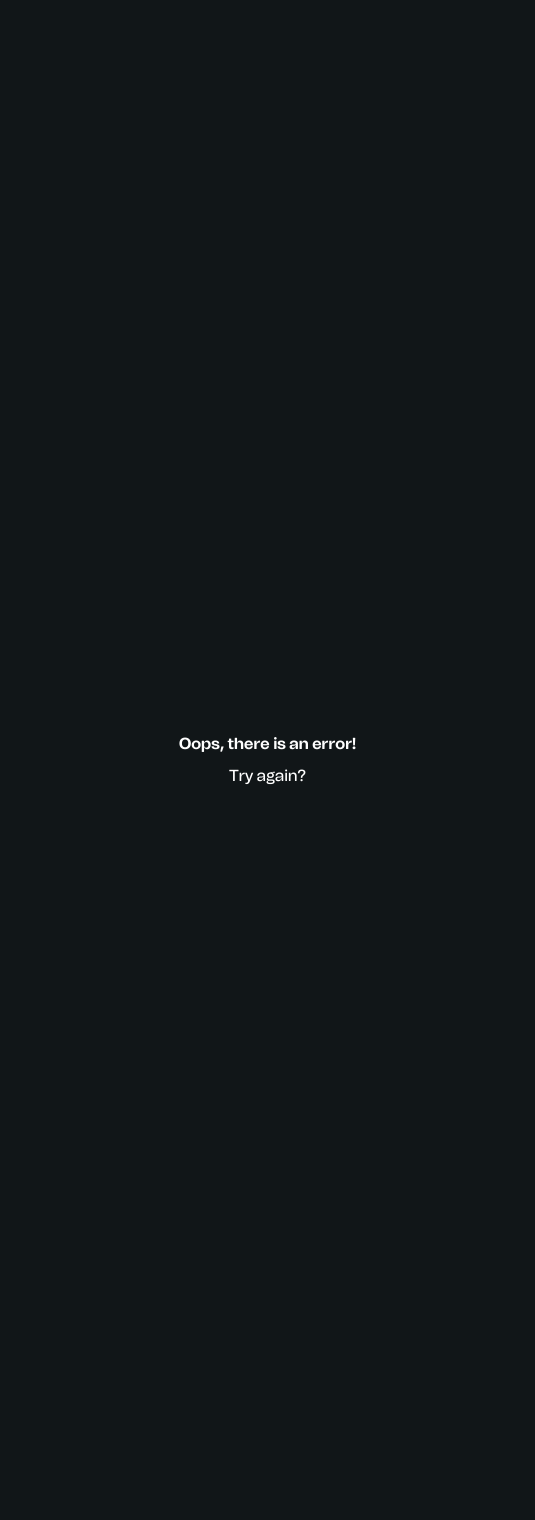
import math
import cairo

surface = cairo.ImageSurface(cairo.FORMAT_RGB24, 535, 1520)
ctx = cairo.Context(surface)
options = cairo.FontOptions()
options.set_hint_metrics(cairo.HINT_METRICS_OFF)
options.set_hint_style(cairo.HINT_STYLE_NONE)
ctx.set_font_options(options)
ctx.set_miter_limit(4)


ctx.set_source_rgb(0.067, 0.086, 0.094)
ctx.paint()
ctx.select_font_face("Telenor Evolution", cairo.FONT_SLANT_NORMAL, cairo.FONT_WEIGHT_BOLD)
ctx.set_font_size(16)
ctx.set_source_rgb(1, 1, 1)
ctx.move_to(179, 749)
ctx.show_text("Oops, there is an error!")
ctx.select_font_face("Telenor Evolution")
ctx.move_to(229, 781)
ctx.show_text("Try again?")
surface.write_to_png("page.png")
